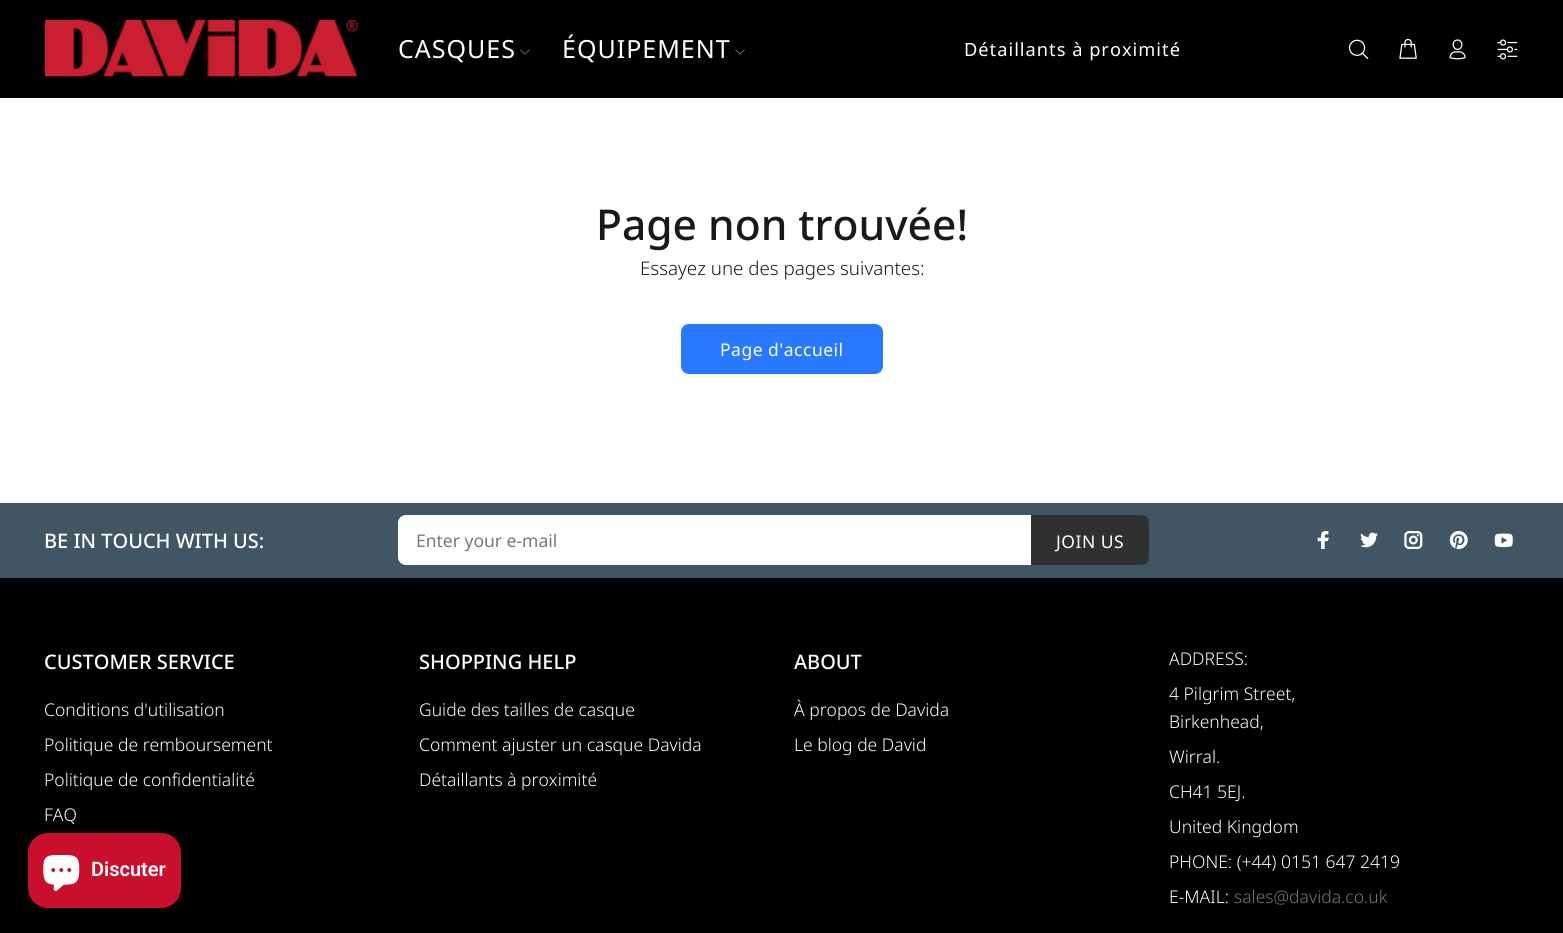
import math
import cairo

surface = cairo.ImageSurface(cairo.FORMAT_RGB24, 1563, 933)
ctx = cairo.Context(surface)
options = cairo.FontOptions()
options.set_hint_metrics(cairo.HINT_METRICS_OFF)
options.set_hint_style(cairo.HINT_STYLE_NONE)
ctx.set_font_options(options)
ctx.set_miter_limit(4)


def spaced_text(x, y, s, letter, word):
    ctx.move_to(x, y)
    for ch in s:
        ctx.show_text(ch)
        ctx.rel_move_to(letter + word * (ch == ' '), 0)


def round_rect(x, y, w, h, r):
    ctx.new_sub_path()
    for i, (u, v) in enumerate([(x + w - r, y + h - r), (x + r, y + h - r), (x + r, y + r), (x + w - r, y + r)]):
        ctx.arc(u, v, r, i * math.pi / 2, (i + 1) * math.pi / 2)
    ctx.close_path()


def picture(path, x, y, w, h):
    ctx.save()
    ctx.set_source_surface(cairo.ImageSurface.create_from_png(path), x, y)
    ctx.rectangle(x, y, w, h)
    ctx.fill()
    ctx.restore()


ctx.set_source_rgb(1, 1, 1)
ctx.paint()
ctx.set_source_rgb(0, 0, 0)
ctx.rectangle(0, 0, 1563, 98)
ctx.fill()
picture("img1.png", 45, 20, 313, 57)
ctx.select_font_face("Noto Sans")
ctx.set_font_size(25)
ctx.set_source_rgb(1, 1, 1)
spaced_text(398, 58, "CASQUES", 1, 0)
picture("img2.png", 520, 49, 10, 6)
spaced_text(562, 58, "ÉQUIPEMENT", 1, 0)
picture("img2.png", 735, 49, 10, 6)
ctx.set_font_size(18.25)
spaced_text(964, 56, "Détaillants à proximité", 1, 0)
picture("img3.png", 1348, 39, 21, 21)
picture("img4.png", 1399, 38, 18, 21)
picture("img5.png", 1449, 39, 17, 21)
picture("img6.png", 1497, 39, 21, 21)
ctx.select_font_face("Noto Sans Medium")
ctx.set_font_size(42.5)
ctx.set_source_rgb(0.098, 0.098, 0.098)
ctx.move_to(596, 240)
ctx.show_text("Page non trouvée!")
ctx.select_font_face("Noto Sans Light")
ctx.set_font_size(18.75)
ctx.move_to(640, 275)
ctx.show_text("Essayez une des pages suivantes:")
ctx.set_source_rgb(0.157, 0.475, 0.996)
round_rect(681, 324, 202, 50, 8)
ctx.fill()
ctx.select_font_face("Noto Sans")
ctx.set_font_size(17.5)
ctx.set_source_rgb(1, 1, 1)
spaced_text(720, 356, "Page d'accueil", 0.5, 0)
ctx.set_source_rgb(0, 0, 0)
ctx.rectangle(0, 578, 1563, 355)
ctx.fill()
ctx.set_source_rgb(0.259, 0.333, 0.388)
ctx.rectangle(0, 503, 1563, 75)
ctx.fill()
ctx.select_font_face("Noto Sans Medium")
ctx.set_font_size(20)
ctx.set_source_rgb(1, 1, 1)
ctx.move_to(44, 548)
ctx.show_text("BE IN TOUCH WITH US:")
ctx.new_path()
ctx.move_to(406, 515)
ctx.line_to(1031, 515)
ctx.line_to(1031, 565)
ctx.line_to(406, 565)
ctx.curve_to(401.5, 565, 398, 561.5, 398, 557)
ctx.line_to(398, 523)
ctx.curve_to(398, 518.5, 401.5, 515, 406, 515)
ctx.close_path()
ctx.fill()
ctx.select_font_face("Noto Sans")
ctx.set_font_size(17.5)
ctx.set_source_rgb(0.467, 0.467, 0.467)
ctx.move_to(416, 547)
ctx.show_text("Enter your e-mail")
ctx.set_source_rgb(0.188, 0.188, 0.188)
ctx.new_path()
ctx.move_to(1031, 515)
ctx.line_to(1141, 515)
ctx.curve_to(1145.5, 515, 1149, 518.5, 1149, 523)
ctx.line_to(1149, 557)
ctx.curve_to(1149, 561.5, 1145.5, 565, 1141, 565)
ctx.line_to(1031, 565)
ctx.close_path()
ctx.fill()
ctx.set_source_rgb(1, 1, 1)
spaced_text(1056, 548, "JOIN US", 0.5, 0)
picture("img7.png", 1317, 531, 12, 18)
picture("img8.png", 1360, 532, 18, 16)
picture("img9.png", 1404, 531, 19, 18)
picture("img10.png", 1449, 531, 19, 18)
picture("img11.png", 1494, 533, 19, 15)
ctx.select_font_face("Noto Sans Medium")
ctx.set_font_size(20)
ctx.move_to(44, 669)
ctx.show_text("CUSTOMER SERVICE")
ctx.select_font_face("Noto Sans Light")
ctx.set_font_size(17.5)
ctx.move_to(44, 716)
ctx.show_text("Conditions d'utilisation")
ctx.move_to(44, 751)
ctx.show_text("Politique de remboursement")
ctx.move_to(44, 786)
ctx.show_text("Politique de confidentialité")
ctx.move_to(44, 821)
ctx.show_text("FAQ")
ctx.select_font_face("Noto Sans Medium")
ctx.set_font_size(20)
ctx.move_to(419, 669)
ctx.show_text("SHOPPING HELP")
ctx.select_font_face("Noto Sans Light")
ctx.set_font_size(17.5)
ctx.move_to(419, 716)
ctx.show_text("Guide des tailles de casque")
ctx.move_to(419, 751)
ctx.show_text("Comment ajuster un casque Davida")
ctx.move_to(419, 786)
ctx.show_text("Détaillants à proximité")
ctx.select_font_face("Noto Sans Medium")
ctx.set_font_size(20)
ctx.move_to(794, 669)
ctx.show_text("ABOUT")
ctx.select_font_face("Noto Sans Light")
ctx.set_font_size(17.5)
ctx.move_to(794, 716)
ctx.show_text("À propos de Davida")
ctx.move_to(794, 751)
ctx.show_text("Le blog de David")
ctx.move_to(1169, 665)
ctx.show_text("ADDRESS:")
ctx.move_to(1169, 700)
ctx.show_text("4 Pilgrim Street,")
ctx.move_to(1169, 728)
ctx.show_text("Birkenhead,")
ctx.move_to(1169, 763)
ctx.show_text("Wirral.")
ctx.move_to(1169, 798)
ctx.show_text("CH41 5EJ.")
ctx.move_to(1169, 833)
ctx.show_text("United Kingdom")
ctx.move_to(1169, 868)
ctx.show_text("PHONE: (+44) 0151 647 2419")
ctx.move_to(1169, 903)
ctx.show_text("E-MAIL:")
ctx.set_source_rgb(0.467, 0.467, 0.467)
ctx.move_to(1234, 903)
ctx.show_text("sales@davida.co.uk")
ctx.set_source_rgb(0.784, 0.063, 0.18)
round_rect(28, 833, 153, 75, 20)
ctx.fill()
picture("img12.png", 43, 855, 37, 36)
ctx.select_font_face("Roboto SemiBold")
ctx.set_font_size(20)
ctx.set_source_rgb(1, 1, 1)
ctx.move_to(91, 876)
ctx.show_text("Discuter")
surface.write_to_png("page.png")
